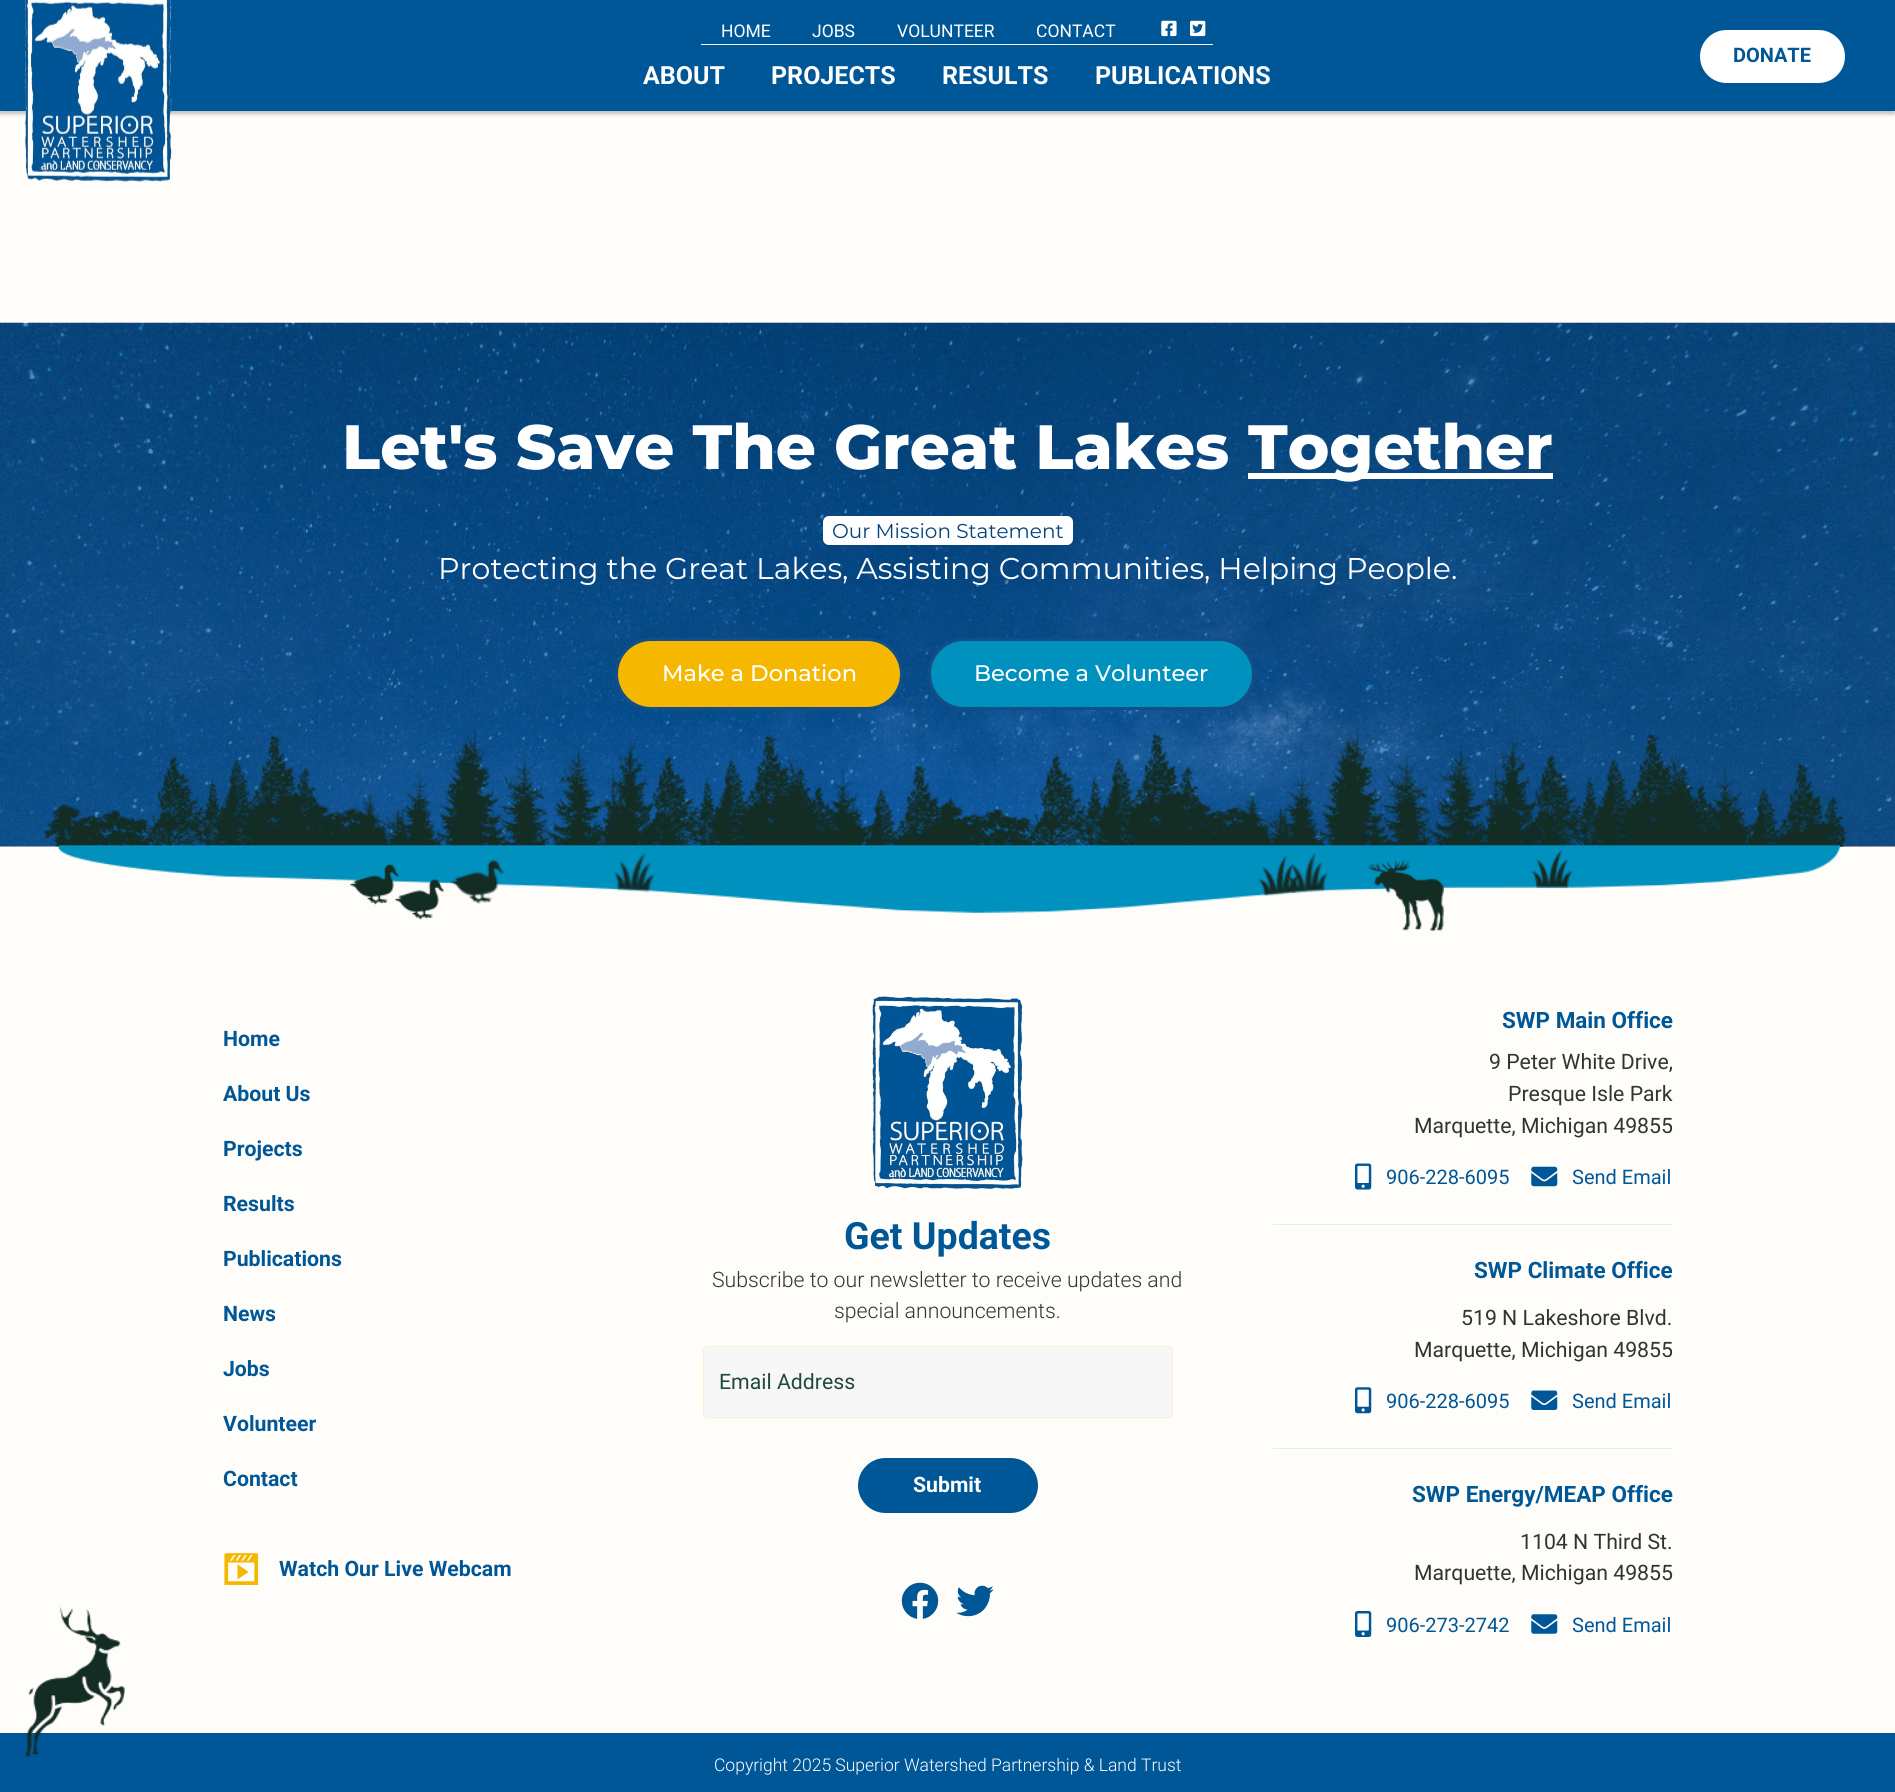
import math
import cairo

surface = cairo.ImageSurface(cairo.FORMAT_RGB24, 1895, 1792)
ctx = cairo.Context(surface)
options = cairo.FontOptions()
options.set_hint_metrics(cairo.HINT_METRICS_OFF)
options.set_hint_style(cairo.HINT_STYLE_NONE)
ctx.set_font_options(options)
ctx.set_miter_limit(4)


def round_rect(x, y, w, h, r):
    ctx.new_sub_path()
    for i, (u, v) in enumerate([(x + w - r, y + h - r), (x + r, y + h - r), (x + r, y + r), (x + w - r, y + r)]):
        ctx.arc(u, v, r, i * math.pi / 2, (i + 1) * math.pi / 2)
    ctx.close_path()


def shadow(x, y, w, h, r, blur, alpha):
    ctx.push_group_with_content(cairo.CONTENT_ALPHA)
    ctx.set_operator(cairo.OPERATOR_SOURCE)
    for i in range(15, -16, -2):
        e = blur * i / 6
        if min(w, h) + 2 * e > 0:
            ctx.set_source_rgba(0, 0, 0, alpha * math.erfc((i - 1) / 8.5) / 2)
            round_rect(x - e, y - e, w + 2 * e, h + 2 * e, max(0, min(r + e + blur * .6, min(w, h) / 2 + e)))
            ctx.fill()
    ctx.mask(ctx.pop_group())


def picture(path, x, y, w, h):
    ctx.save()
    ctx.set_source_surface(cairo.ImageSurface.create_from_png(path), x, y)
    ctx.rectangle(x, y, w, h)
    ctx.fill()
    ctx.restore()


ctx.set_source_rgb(0.996, 0.992, 0.976)
ctx.paint()
ctx.set_source_rgb(0, 0, 0)
shadow(0, 3, 1895, 111, 0, 2, 0.25)
ctx.set_source_rgb(0, 0.341, 0.596)
ctx.rectangle(0, 0, 1895, 111)
ctx.fill()
picture("img1.png", 25, 0, 147, 182)
ctx.set_source_rgb(0.969, 0.969, 0.969)
ctx.rectangle(701, 44, 512, 1)
ctx.fill()
ctx.select_font_face("Roboto")
ctx.set_font_size(17.5)
ctx.set_source_rgb(1, 1, 1)
ctx.move_to(721, 37)
ctx.show_text("HOME")
ctx.move_to(812, 37)
ctx.show_text("JOBS")
ctx.move_to(897, 37)
ctx.show_text("VOLUNTEER")
ctx.move_to(1036, 37)
ctx.show_text("CONTACT")
picture("img2.png", 1161, 20, 16, 17)
picture("img3.png", 1190, 20, 16, 17)
ctx.select_font_face("Roboto", cairo.FONT_SLANT_NORMAL, cairo.FONT_WEIGHT_BOLD)
ctx.set_font_size(25)
ctx.move_to(643, 84)
ctx.show_text("ABOUT")
ctx.move_to(771, 84)
ctx.show_text("PROJECTS")
ctx.move_to(942, 84)
ctx.show_text("RESULTS")
ctx.move_to(1095, 84)
ctx.show_text("PUBLICATIONS")
round_rect(1701.5, 31.5, 142, 50, 25)
ctx.fill_preserve()
ctx.set_line_width(3)
ctx.stroke()
ctx.set_font_size(20)
ctx.set_source_rgb(0, 0.341, 0.596)
ctx.move_to(1733, 62)
ctx.show_text("DONATE")
picture("img4.png", 0, 322, 1895, 525)
ctx.select_font_face("Montserrat ExtraBold")
ctx.set_font_size(62.5)
ctx.set_source_rgb(1, 1, 1)
ctx.move_to(342, 469)
ctx.show_text("Let's Save The Great Lakes")
ctx.rectangle(1248, 473, 305, 6)
ctx.fill()
ctx.move_to(1248, 469)
ctx.show_text("Together")
round_rect(823, 516, 250, 29, 6)
ctx.fill()
ctx.select_font_face("Montserrat")
ctx.set_font_size(20)
ctx.set_source_rgb(0.016, 0.259, 0.482)
ctx.move_to(832, 538)
ctx.show_text("Our Mission Statement")
ctx.set_font_size(30)
ctx.set_source_rgb(1, 1, 1)
ctx.move_to(438, 579)
ctx.show_text("Protecting the Great Lakes, Assisting Communities, Helping People.")
ctx.set_source_rgb(0.961, 0.718, 0)
round_rect(616.5, 639.5, 285, 69, 34.5)
ctx.fill_preserve()
ctx.set_source_rgb(0.075, 0.31, 0.525)
ctx.stroke()
ctx.select_font_face("Montserrat Medium")
ctx.set_font_size(22.5)
ctx.set_source_rgb(1, 1, 1)
ctx.move_to(662, 681)
ctx.show_text("Make a Donation")
ctx.set_source_rgb(0, 0.569, 0.749)
round_rect(929.5, 639.5, 324, 69, 34.5)
ctx.fill_preserve()
ctx.set_source_rgb(0.075, 0.31, 0.525)
ctx.stroke()
ctx.set_source_rgb(1, 1, 1)
ctx.move_to(974, 681)
ctx.show_text("Become a Volunteer")
picture("img5.png", 43, 726, 1810, 206)
ctx.select_font_face("Roboto", cairo.FONT_SLANT_NORMAL, cairo.FONT_WEIGHT_BOLD)
ctx.set_font_size(21.25)
ctx.set_source_rgb(0, 0.341, 0.596)
ctx.move_to(223, 1046)
ctx.show_text("Home")
ctx.move_to(223, 1101)
ctx.show_text("About Us")
ctx.move_to(223, 1156)
ctx.show_text("Projects")
ctx.move_to(223, 1211)
ctx.show_text("Results")
ctx.move_to(223, 1266)
ctx.show_text("Publications")
ctx.move_to(223, 1321)
ctx.show_text("News")
ctx.move_to(223, 1376)
ctx.show_text("Jobs")
ctx.move_to(223, 1431)
ctx.show_text("Volunteer")
ctx.move_to(223, 1486)
ctx.show_text("Contact")
picture("img6.png", 224, 1553, 35, 32)
ctx.move_to(279, 1576)
ctx.show_text("Watch Our Live Webcam")
picture("img7.png", 872, 996, 151, 193)
ctx.set_font_size(37.5)
ctx.move_to(844, 1249)
ctx.show_text("Get Updates")
ctx.select_font_face("Roboto Light")
ctx.set_font_size(21.25)
ctx.set_source_rgb(0.2, 0.2, 0.2)
ctx.move_to(712, 1287)
ctx.show_text("Subscribe to our newsletter to receive updates and")
ctx.move_to(834, 1318)
ctx.show_text("special announcements.")
ctx.set_source_rgb(0.965, 0.965, 0.965)
round_rect(703.5, 1346.5, 469, 71, 4.5)
ctx.fill_preserve()
ctx.set_source_rgb(0.969, 0.933, 0.804)
ctx.set_line_width(1)
ctx.stroke()
ctx.select_font_face("Roboto")
ctx.set_source_rgb(0.129, 0.286, 0.235)
ctx.move_to(719, 1389)
ctx.show_text("Email Address")
ctx.set_source_rgb(0, 0.341, 0.596)
round_rect(858, 1458, 180, 55, 27.5)
ctx.fill()
ctx.select_font_face("Roboto", cairo.FONT_SLANT_NORMAL, cairo.FONT_WEIGHT_BOLD)
ctx.set_source_rgb(1, 1, 1)
ctx.move_to(913, 1492)
ctx.show_text("Submit")
picture("img8.png", 901, 1582, 38, 37)
picture("img9.png", 956, 1585, 38, 32)
ctx.set_font_size(22.5)
ctx.set_source_rgb(0, 0.341, 0.596)
ctx.move_to(1502, 1028)
ctx.show_text("SWP Main Office")
ctx.select_font_face("Roboto")
ctx.set_font_size(21.25)
ctx.set_source_rgb(0.2, 0.2, 0.2)
ctx.move_to(1489, 1069)
ctx.show_text("9 Peter White Drive,")
ctx.move_to(1508, 1101)
ctx.show_text("Presque Isle Park")
ctx.move_to(1414, 1133)
ctx.show_text("Marquette, Michigan 49855")
picture("img10.png", 1355, 1163, 17, 27)
ctx.set_font_size(20)
ctx.set_source_rgb(0, 0.341, 0.596)
ctx.move_to(1386, 1184)
ctx.show_text("906-228-6095")
picture("img11.png", 1531, 1166, 27, 21)
ctx.move_to(1572, 1184)
ctx.show_text("Send Email")
ctx.set_source_rgb(0.918, 0.918, 0.918)
ctx.rectangle(1273, 1224, 400, 1)
ctx.fill()
ctx.select_font_face("Roboto", cairo.FONT_SLANT_NORMAL, cairo.FONT_WEIGHT_BOLD)
ctx.set_font_size(22.5)
ctx.set_source_rgb(0, 0.341, 0.596)
ctx.move_to(1474, 1278)
ctx.show_text("SWP Climate Office")
ctx.select_font_face("Roboto")
ctx.set_font_size(21.25)
ctx.set_source_rgb(0.2, 0.2, 0.2)
ctx.move_to(1461, 1325)
ctx.show_text("519 N Lakeshore Blvd.")
ctx.move_to(1414, 1357)
ctx.show_text("Marquette, Michigan 49855")
picture("img12.png", 1355, 1387, 17, 27)
ctx.set_font_size(20)
ctx.set_source_rgb(0, 0.341, 0.596)
ctx.move_to(1386, 1408)
ctx.show_text("906-228-6095")
picture("img13.png", 1531, 1390, 27, 20)
ctx.move_to(1572, 1408)
ctx.show_text("Send Email")
ctx.set_source_rgb(0.918, 0.918, 0.918)
ctx.rectangle(1273, 1448, 400, 1)
ctx.fill()
ctx.select_font_face("Roboto", cairo.FONT_SLANT_NORMAL, cairo.FONT_WEIGHT_BOLD)
ctx.set_font_size(22.5)
ctx.set_source_rgb(0, 0.341, 0.596)
ctx.move_to(1412, 1502)
ctx.show_text("SWP Energy/MEAP Office")
ctx.select_font_face("Roboto")
ctx.set_font_size(21.25)
ctx.set_source_rgb(0.2, 0.2, 0.2)
ctx.move_to(1520, 1549)
ctx.show_text("1104 N Third St.")
ctx.move_to(1414, 1580)
ctx.show_text("Marquette, Michigan 49855")
picture("img14.png", 1355, 1611, 17, 26)
ctx.set_font_size(20)
ctx.set_source_rgb(0, 0.341, 0.596)
ctx.move_to(1386, 1632)
ctx.show_text("906-273-2742")
picture("img15.png", 1531, 1614, 27, 20)
ctx.move_to(1572, 1632)
ctx.show_text("Send Email")
ctx.rectangle(0, 1733, 1895, 59)
ctx.fill()
picture("img16.png", 25, 1606, 100, 151)
ctx.select_font_face("Roboto Light")
ctx.set_font_size(17.5)
ctx.set_source_rgb(1, 1, 1)
ctx.move_to(714, 1771)
ctx.show_text("Copyright 2025 Superior Watershed Partnership & Land Trust")
surface.write_to_png("page.png")
